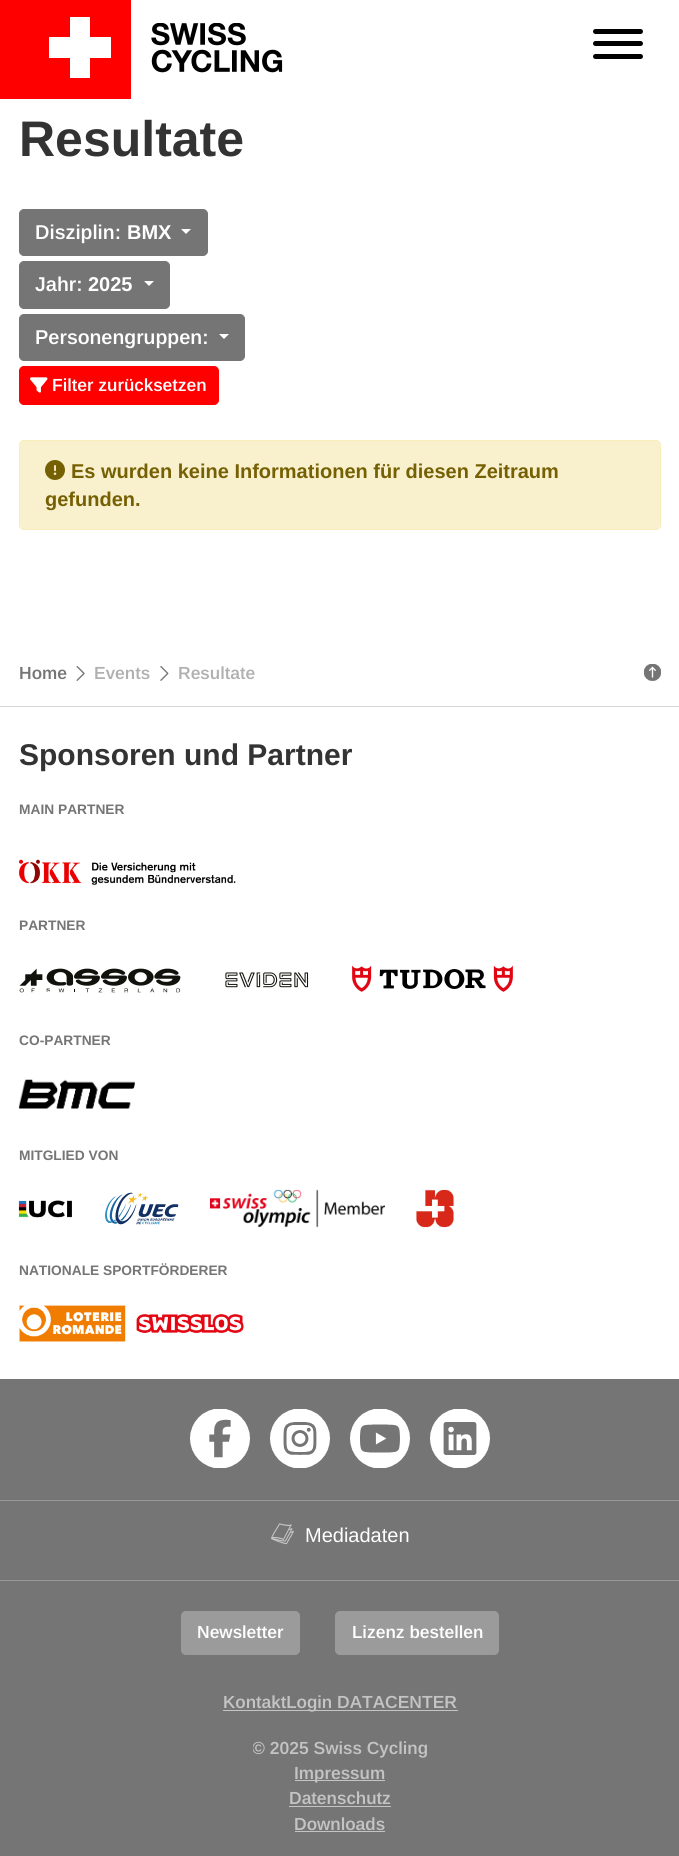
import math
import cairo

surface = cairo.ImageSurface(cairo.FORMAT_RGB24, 679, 1856)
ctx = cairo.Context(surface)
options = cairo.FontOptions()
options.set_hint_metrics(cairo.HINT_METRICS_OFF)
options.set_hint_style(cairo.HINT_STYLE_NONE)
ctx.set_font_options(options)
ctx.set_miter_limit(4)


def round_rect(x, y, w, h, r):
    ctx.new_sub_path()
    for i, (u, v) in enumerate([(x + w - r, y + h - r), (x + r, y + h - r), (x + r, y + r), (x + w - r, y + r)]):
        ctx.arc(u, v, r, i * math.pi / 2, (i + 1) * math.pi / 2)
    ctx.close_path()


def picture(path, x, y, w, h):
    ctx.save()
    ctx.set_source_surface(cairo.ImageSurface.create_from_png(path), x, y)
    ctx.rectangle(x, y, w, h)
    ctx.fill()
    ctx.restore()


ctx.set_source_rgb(1, 1, 1)
ctx.paint()
ctx.set_source_rgb(1, 0, 0)
ctx.rectangle(0, 0, 131, 99)
ctx.fill()
ctx.set_source_rgb(1, 1, 1)
ctx.new_path()
ctx.move_to(90, 37)
ctx.line_to(90, 17)
ctx.line_to(70, 17)
ctx.line_to(70, 37)
ctx.line_to(49, 37)
ctx.line_to(49, 58)
ctx.line_to(70, 58)
ctx.line_to(70, 78)
ctx.line_to(90, 78)
ctx.line_to(90, 58)
ctx.line_to(111, 58)
ctx.line_to(111, 37)
ctx.close_path()
ctx.fill()
picture("img1.png", 151, 23, 132, 50)
ctx.set_source_rgb(0, 0, 0)
round_rect(593, 41, 50, 5, 2.5)
ctx.fill()
round_rect(593, 29, 50, 5, 2.5)
ctx.fill()
round_rect(593, 54, 50, 5, 2.5)
ctx.fill()
ctx.select_font_face("Arimo", cairo.FONT_SLANT_NORMAL, cairo.FONT_WEIGHT_BOLD)
ctx.set_font_size(50)
ctx.set_source_rgb(0.2, 0.2, 0.2)
ctx.move_to(19, 156)
ctx.show_text("Resultate")
ctx.set_source_rgb(0.459, 0.459, 0.459)
round_rect(19.5, 209.5, 188, 46, 4.5)
ctx.fill_preserve()
ctx.set_line_width(1)
ctx.stroke()
ctx.select_font_face("Arimo SemiBold")
ctx.set_font_size(20)
ctx.set_source_rgb(1, 1, 1)
ctx.move_to(35, 239)
ctx.show_text("Disziplin:")
ctx.select_font_face("Arimo", cairo.FONT_SLANT_NORMAL, cairo.FONT_WEIGHT_BOLD)
ctx.move_to(127, 239)
ctx.show_text("BMX")
ctx.new_path()
ctx.move_to(181, 229)
ctx.line_to(191, 229)
ctx.line_to(186, 234)
ctx.close_path()
ctx.fill()
ctx.set_source_rgb(0.459, 0.459, 0.459)
round_rect(19.5, 261.5, 150, 47, 4.5)
ctx.fill_preserve()
ctx.stroke()
ctx.select_font_face("Arimo SemiBold")
ctx.set_source_rgb(1, 1, 1)
ctx.move_to(35, 291)
ctx.show_text("Jahr:")
ctx.select_font_face("Arimo", cairo.FONT_SLANT_NORMAL, cairo.FONT_WEIGHT_BOLD)
ctx.move_to(88, 291)
ctx.show_text("2025")
ctx.new_path()
ctx.move_to(144, 281)
ctx.line_to(154, 281)
ctx.line_to(149, 286)
ctx.close_path()
ctx.fill()
ctx.set_source_rgb(0.459, 0.459, 0.459)
round_rect(19.5, 314.5, 225, 46, 4.5)
ctx.fill_preserve()
ctx.stroke()
ctx.select_font_face("Arimo SemiBold")
ctx.set_source_rgb(1, 1, 1)
ctx.move_to(35, 344)
ctx.show_text("Personengruppen:")
ctx.new_path()
ctx.move_to(219, 334)
ctx.line_to(229, 334)
ctx.line_to(224, 339)
ctx.close_path()
ctx.fill()
ctx.set_source_rgb(1, 0, 0)
round_rect(19.5, 366.5, 199, 38, 4.5)
ctx.fill_preserve()
ctx.stroke()
picture("img2.png", 30, 377, 18, 16)
ctx.set_font_size(17.5)
ctx.set_source_rgb(1, 1, 1)
ctx.move_to(52, 391)
ctx.show_text("Filter zurücksetzen")
ctx.set_source_rgb(0.976, 0.945, 0.804)
round_rect(19.5, 440.5, 641, 89, 4.5)
ctx.fill_preserve()
ctx.set_source_rgb(0.969, 0.922, 0.729)
ctx.stroke()
picture("img3.png", 45, 460, 20, 20)
ctx.select_font_face("Arimo", cairo.FONT_SLANT_NORMAL, cairo.FONT_WEIGHT_BOLD)
ctx.set_font_size(20)
ctx.set_source_rgb(0.463, 0.376, 0.016)
ctx.move_to(71, 478)
ctx.show_text("Es wurden keine Informationen für diesen Zeitraum")
ctx.move_to(45, 506)
ctx.show_text("gefunden.")
ctx.select_font_face("Arimo SemiBold")
ctx.set_font_size(17.5)
ctx.set_source_rgb(0.459, 0.459, 0.459)
ctx.move_to(19, 679)
ctx.show_text("Home")
picture("img4.png", 76, 666, 9, 15)
ctx.set_source_rgb(0.69, 0.69, 0.69)
ctx.move_to(94, 679)
ctx.show_text("Events")
picture("img5.png", 160, 666, 9, 15)
ctx.move_to(178, 679)
ctx.show_text("Resultate")
picture("img6.png", 644, 664, 17, 17)
ctx.set_source_rgb(0.847, 0.847, 0.847)
ctx.rectangle(0, 706, 679, 1)
ctx.fill()
ctx.select_font_face("Arimo", cairo.FONT_SLANT_NORMAL, cairo.FONT_WEIGHT_BOLD)
ctx.set_font_size(30)
ctx.set_source_rgb(0.2, 0.2, 0.2)
ctx.move_to(19, 765)
ctx.show_text("Sponsoren und Partner")
ctx.set_font_size(13.75)
ctx.set_source_rgb(0.459, 0.459, 0.459)
ctx.move_to(19, 814)
ctx.show_text("MAIN PARTNER")
picture("img7.png", 18, 859, 218, 26)
ctx.move_to(19, 930)
ctx.show_text("PARTNER")
picture("img8.png", 19, 968, 162, 25)
picture("img9.png", 225, 972, 84, 16)
picture("img10.png", 352, 965, 161, 27)
ctx.move_to(19, 1045)
ctx.show_text("CO-PARTNER")
picture("img11.png", 18, 1079, 117, 30)
ctx.move_to(19, 1160)
ctx.show_text("MITGLIED VON")
picture("img12.png", 18, 1200, 54, 18)
picture("img13.png", 105, 1192, 74, 33)
picture("img14.png", 210, 1189, 175, 39)
picture("img15.png", 416, 1189, 38, 39)
ctx.move_to(19, 1275)
ctx.show_text("NATIONALE SPORTFÖRDERER")
picture("img16.png", 19, 1305, 225, 37)
ctx.rectangle(0, 1379, 679, 477)
ctx.fill()
picture("img17.png", 190, 1409, 60, 59)
picture("img18.png", 270, 1409, 60, 59)
picture("img19.png", 350, 1409, 60, 59)
picture("img20.png", 430, 1409, 60, 59)
ctx.set_source_rgb(0.6, 0.6, 0.6)
ctx.rectangle(0, 1500, 679, 1)
ctx.fill()
picture("img21.png", 271, 1523, 23, 22)
ctx.select_font_face("Arimo")
ctx.set_font_size(20)
ctx.set_source_rgb(1, 1, 1)
ctx.move_to(305, 1542)
ctx.show_text("Mediadaten")
ctx.set_source_rgb(0.6, 0.6, 0.6)
ctx.rectangle(0, 1580, 679, 1)
ctx.fill()
ctx.set_source_rgb(0.608, 0.608, 0.608)
round_rect(181.5, 1611.5, 118, 43, 4.5)
ctx.fill_preserve()
ctx.stroke()
ctx.select_font_face("Arimo SemiBold")
ctx.set_font_size(17.5)
ctx.set_source_rgb(1, 1, 1)
ctx.move_to(197, 1638)
ctx.show_text("Newsletter")
ctx.set_source_rgb(0.608, 0.608, 0.608)
round_rect(335.5, 1611.5, 163, 43, 4.5)
ctx.fill_preserve()
ctx.stroke()
ctx.set_source_rgb(1, 1, 1)
ctx.move_to(352, 1638)
ctx.show_text("Lizenz bestellen")
ctx.set_source_rgb(0.769, 0.769, 0.769)
ctx.rectangle(223, 1710, 235, 1)
ctx.fill()
ctx.move_to(223, 1708)
ctx.show_text("KontaktLogin DATACENTER")
ctx.save()
ctx.rectangle(253, 1735, 175, 25)
ctx.clip()
ctx.move_to(252, 1754)
ctx.show_text("© 2025 Swiss Cycling")
ctx.restore()
ctx.rectangle(295, 1780, 90, 1)
ctx.fill()
ctx.move_to(294, 1779)
ctx.show_text("Impressum")
ctx.move_to(289, 1804)
ctx.show_text("Datenschutz")
ctx.rectangle(289, 1806, 102, 1)
ctx.fill()
ctx.move_to(294, 1830)
ctx.show_text("Downloads")
ctx.rectangle(295, 1831, 90, 1)
ctx.fill()
surface.write_to_png("page.png")
